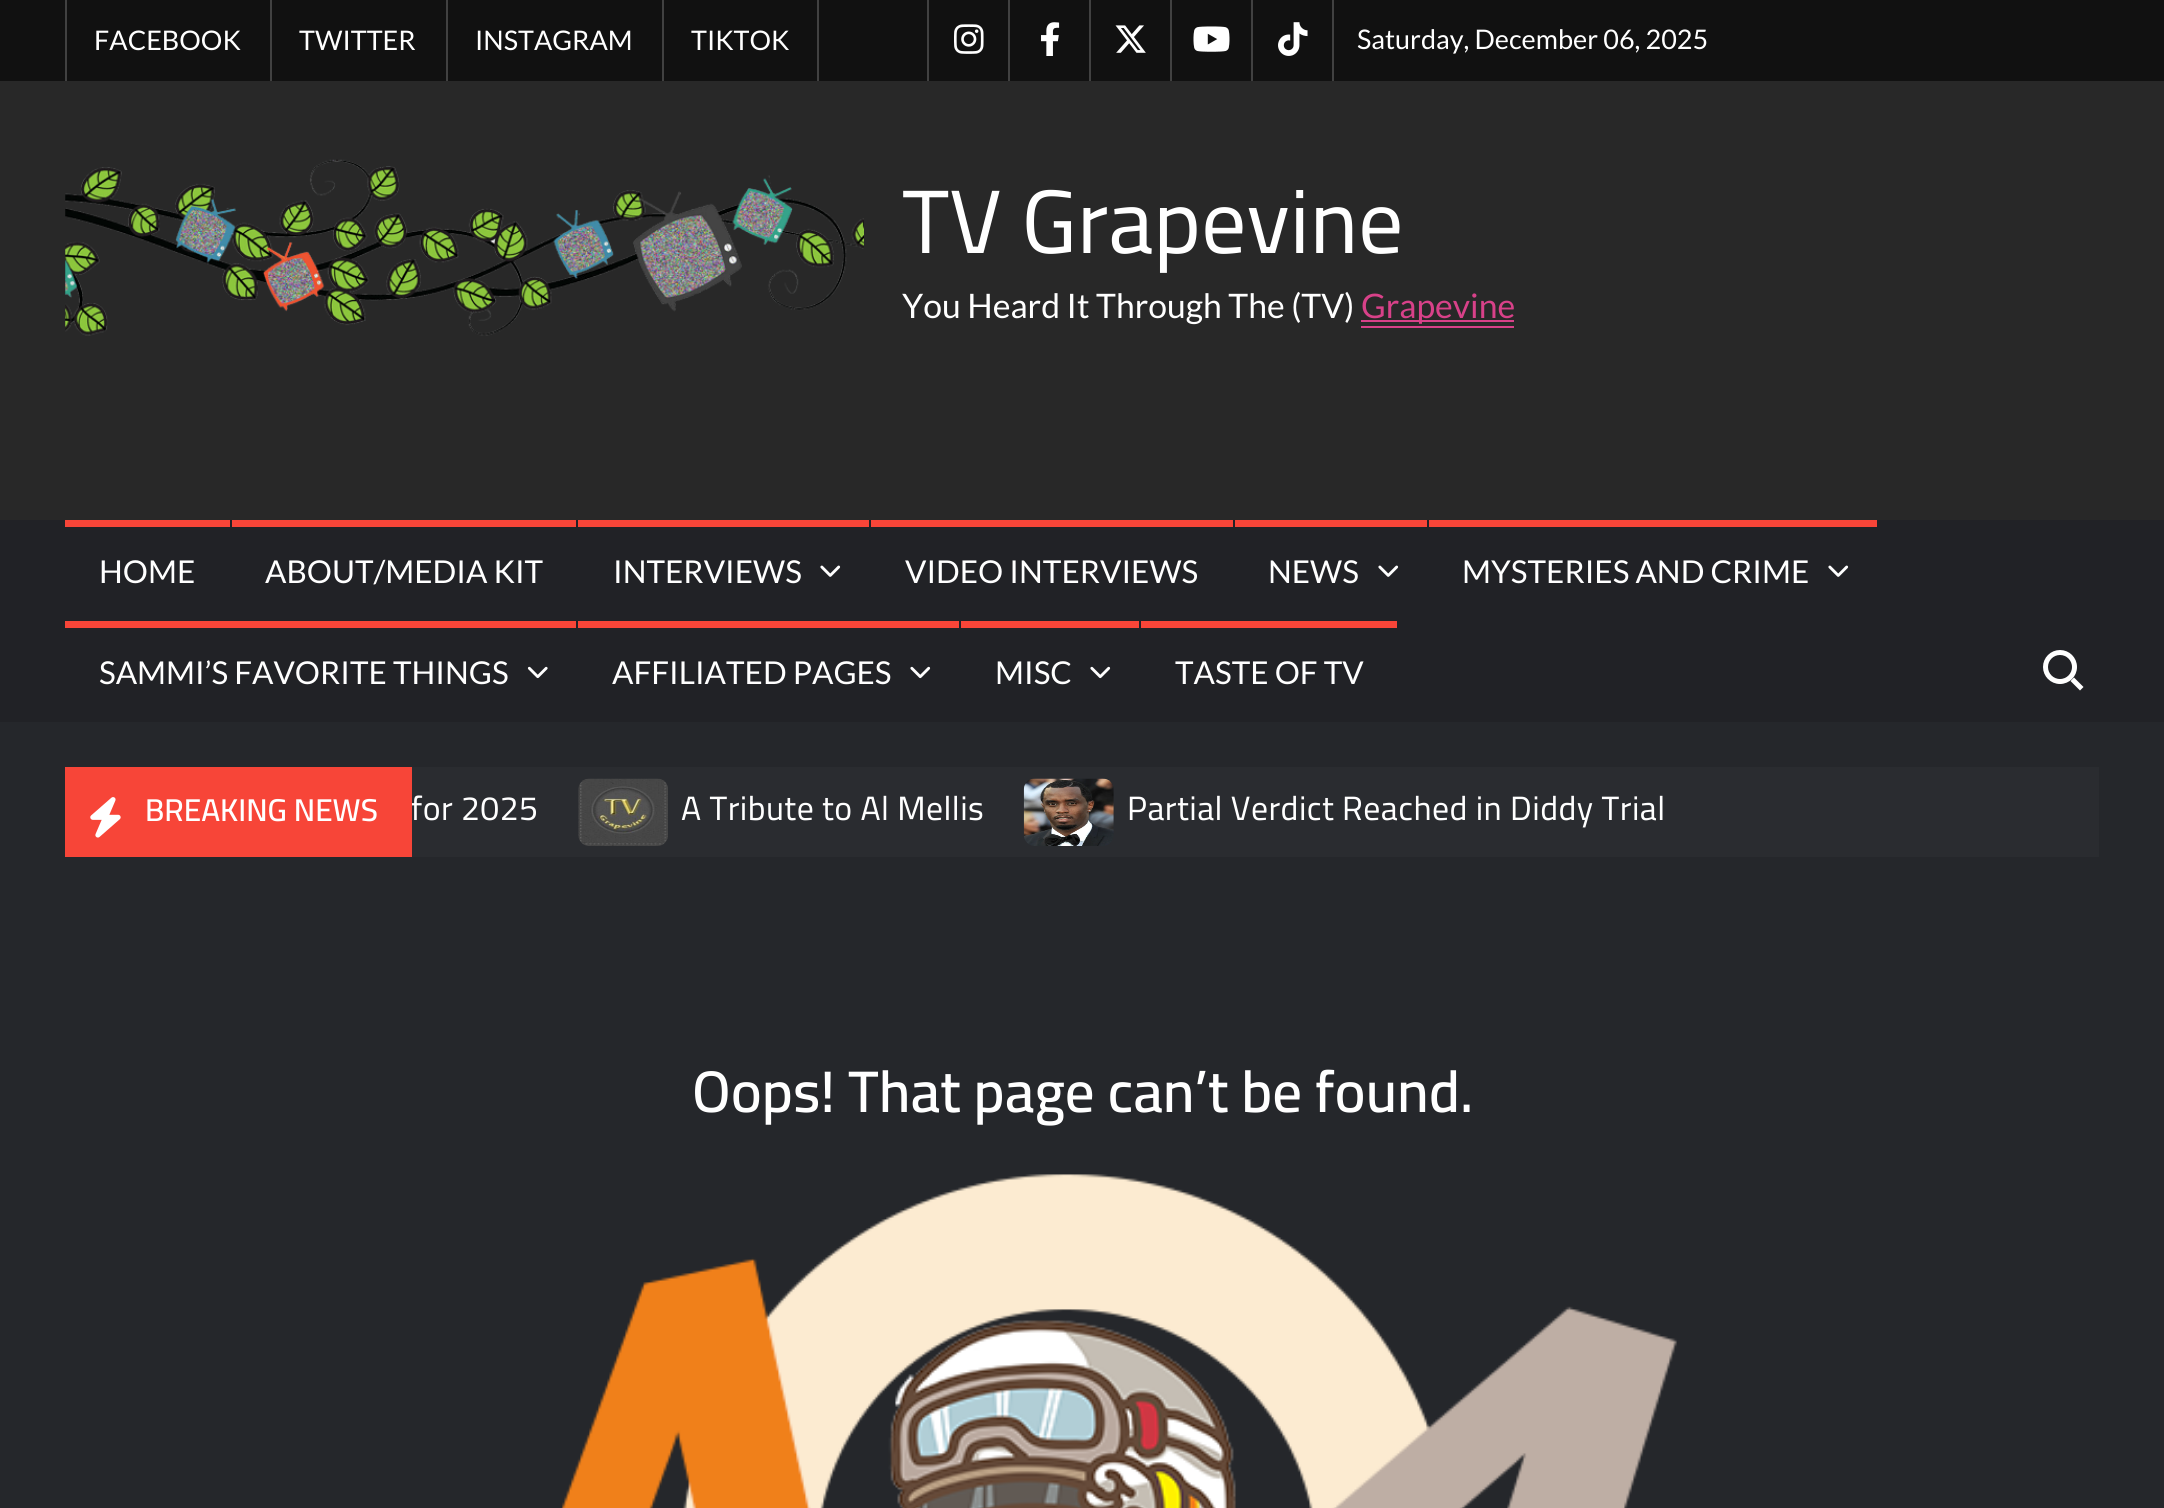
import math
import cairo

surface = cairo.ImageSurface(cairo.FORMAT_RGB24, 2164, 1508)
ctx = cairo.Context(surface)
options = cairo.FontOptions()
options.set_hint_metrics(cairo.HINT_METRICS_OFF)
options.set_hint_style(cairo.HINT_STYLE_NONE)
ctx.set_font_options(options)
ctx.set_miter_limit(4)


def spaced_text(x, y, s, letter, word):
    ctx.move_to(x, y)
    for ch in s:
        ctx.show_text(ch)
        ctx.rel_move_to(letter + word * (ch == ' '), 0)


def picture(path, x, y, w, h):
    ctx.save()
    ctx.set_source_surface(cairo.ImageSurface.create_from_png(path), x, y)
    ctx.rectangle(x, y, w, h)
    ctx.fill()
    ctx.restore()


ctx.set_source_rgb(0.145, 0.153, 0.169)
ctx.paint()
ctx.set_source_rgb(0.067, 0.067, 0.067)
ctx.rectangle(0, 0, 2164, 81)
ctx.fill()
ctx.set_source_rgb(0.255, 0.255, 0.255)
ctx.rectangle(65, 0, 2, 81)
ctx.fill()
ctx.select_font_face("Lato")
ctx.set_font_size(27)
ctx.set_source_rgb(1, 1, 1)
ctx.move_to(94, 50)
ctx.show_text("FACEBOOK")
ctx.set_source_rgb(0.255, 0.255, 0.255)
ctx.rectangle(270, 0, 2, 81)
ctx.fill()
ctx.set_source_rgb(1, 1, 1)
ctx.move_to(299, 50)
ctx.show_text("TWITTER")
ctx.set_source_rgb(0.255, 0.255, 0.255)
ctx.rectangle(446, 0, 2, 81)
ctx.fill()
ctx.set_source_rgb(1, 1, 1)
ctx.move_to(475, 50)
ctx.show_text("INSTAGRAM")
ctx.set_source_rgb(0.255, 0.255, 0.255)
ctx.rectangle(817, 0, 2, 81)
ctx.fill()
ctx.rectangle(662, 0, 2, 81)
ctx.fill()
ctx.set_source_rgb(1, 1, 1)
ctx.move_to(691, 50)
ctx.show_text("TIKTOK")
ctx.set_source_rgb(0.255, 0.255, 0.255)
ctx.rectangle(1008, 0, 2, 81)
ctx.fill()
ctx.rectangle(927, 0, 2, 81)
ctx.fill()
picture("img1.png", 954, 24, 30, 30)
ctx.rectangle(1089, 0, 2, 81)
ctx.fill()
picture("img2.png", 1041, 22, 19, 34)
ctx.rectangle(1170, 0, 2, 81)
ctx.fill()
picture("img3.png", 1115, 25, 31, 28)
ctx.rectangle(1251, 0, 2, 81)
ctx.fill()
picture("img4.png", 1193, 26, 37, 26)
ctx.rectangle(1332, 0, 2, 81)
ctx.fill()
picture("img5.png", 1278, 22, 30, 34)
ctx.set_source_rgb(1, 1, 1)
ctx.move_to(1357, 49)
ctx.show_text("Saturday, December 06, 2025")
ctx.set_source_rgb(0.157, 0.157, 0.157)
ctx.rectangle(0, 81, 2164, 439)
ctx.fill()
picture("img6.png", 65, 159, 799, 177)
ctx.select_font_face("Cairo")
ctx.set_font_size(90)
ctx.set_source_rgb(1, 1, 1)
ctx.move_to(902, 253)
ctx.show_text("TV Grapevine")
ctx.select_font_face("Lato")
ctx.set_font_size(33.75)
ctx.move_to(902, 318)
ctx.show_text("You Heard It Through The (TV)")
ctx.set_source_rgb(0.847, 0.255, 0.537)
ctx.rectangle(1361, 320, 153, 2)
ctx.fill()
ctx.move_to(1361, 318)
ctx.show_text("Grapevine")
ctx.rectangle(1361, 326, 153, 2)
ctx.fill()
ctx.set_source_rgb(0.129, 0.133, 0.149)
ctx.rectangle(0, 520, 2164, 202)
ctx.fill()
ctx.set_source_rgb(0.965, 0.271, 0.22)
ctx.rectangle(65, 520, 165, 7)
ctx.fill()
ctx.set_font_size(31.5)
ctx.set_source_rgb(1, 1, 1)
ctx.move_to(99, 583)
ctx.show_text("HOME")
ctx.set_source_rgb(0.965, 0.271, 0.22)
ctx.rectangle(232, 520, 344, 7)
ctx.fill()
ctx.set_source_rgb(1, 1, 1)
ctx.move_to(265, 583)
ctx.show_text("ABOUT/MEDIA KIT")
ctx.set_source_rgb(0.965, 0.271, 0.22)
ctx.rectangle(578, 520, 291, 7)
ctx.fill()
ctx.set_source_rgb(1, 1, 1)
ctx.move_to(613, 583)
ctx.show_text("INTERVIEWS")
picture("img7.png", 820, 565, 21, 12)
ctx.set_source_rgb(0.965, 0.271, 0.22)
ctx.rectangle(871, 520, 362, 7)
ctx.fill()
ctx.set_source_rgb(1, 1, 1)
ctx.move_to(905, 583)
ctx.show_text("VIDEO INTERVIEWS")
ctx.set_source_rgb(0.965, 0.271, 0.22)
ctx.rectangle(1235, 520, 192, 7)
ctx.fill()
ctx.set_source_rgb(1, 1, 1)
ctx.move_to(1268, 583)
ctx.show_text("NEWS")
picture("img7.png", 1378, 565, 21, 12)
ctx.set_source_rgb(0.965, 0.271, 0.22)
ctx.rectangle(1429, 520, 448, 7)
ctx.fill()
ctx.set_source_rgb(1, 1, 1)
ctx.move_to(1462, 583)
ctx.show_text("MYSTERIES AND CRIME")
picture("img7.png", 1828, 565, 21, 12)
ctx.set_source_rgb(0.965, 0.271, 0.22)
ctx.rectangle(65, 621, 511, 7)
ctx.fill()
ctx.set_source_rgb(1, 1, 1)
ctx.move_to(99, 684)
ctx.show_text("SAMMI’S FAVORITE THINGS")
picture("img8.png", 527, 666, 21, 13)
ctx.set_source_rgb(0.965, 0.271, 0.22)
ctx.rectangle(578, 621, 381, 7)
ctx.fill()
ctx.set_source_rgb(1, 1, 1)
ctx.move_to(612, 684)
ctx.show_text("AFFILIATED PAGES")
picture("img9.png", 910, 666, 21, 13)
ctx.set_source_rgb(0.965, 0.271, 0.22)
ctx.rectangle(961, 621, 178, 7)
ctx.fill()
ctx.set_source_rgb(1, 1, 1)
ctx.move_to(995, 684)
ctx.show_text("MISC")
picture("img9.png", 1090, 666, 21, 13)
ctx.set_source_rgb(0.965, 0.271, 0.22)
ctx.rectangle(1141, 621, 256, 7)
ctx.fill()
ctx.set_source_rgb(1, 1, 1)
ctx.move_to(1175, 684)
ctx.show_text("TASTE OF TV")
ctx.new_path()
ctx.arc(2060, 667, 14.5, 0, 2 * math.pi)
ctx.set_line_width(5)
ctx.stroke()
ctx.new_path()
ctx.move_to(2074, 677.5)
ctx.line_to(2083.5, 687)
ctx.line_to(2080, 690.5)
ctx.line_to(2070.5, 681)
ctx.close_path()
ctx.fill()
ctx.set_source_rgb(0.165, 0.173, 0.188)
ctx.rectangle(412, 767, 1687, 90)
ctx.fill()
ctx.select_font_face("Cairo")
ctx.set_font_size(33.75)
ctx.set_source_rgb(1, 1, 1)
spaced_text(411, 820, "for 2025", 0.45, 0)
ctx.set_source_rgb(0.965, 0.271, 0.22)
ctx.rectangle(65, 767, 347, 90)
ctx.fill()
picture("img10.png", 90, 797, 31, 41)
ctx.select_font_face("Cairo SemiBold")
ctx.set_font_size(31.5)
ctx.set_source_rgb(1, 1, 1)
ctx.move_to(145, 821)
ctx.show_text("BREAKING NEWS")
picture("img11.png", 578, 778, 90, 68)
ctx.select_font_face("Cairo")
ctx.set_font_size(33.75)
spaced_text(681, 820, "A Tribute to Al Mellis", 0.45, 0)
picture("img12.png", 1023, 778, 91, 68)
spaced_text(1127, 820, "Partial Verdict Reached in Diddy Trial", 0.45, 0)
ctx.select_font_face("Cairo SemiBold")
ctx.set_font_size(58.5)
ctx.move_to(692, 1112)
ctx.show_text("Oops! That page can’t be found.")
picture("img13.png", 561, 1174, 1116, 334)
surface.write_to_png("page.png")
